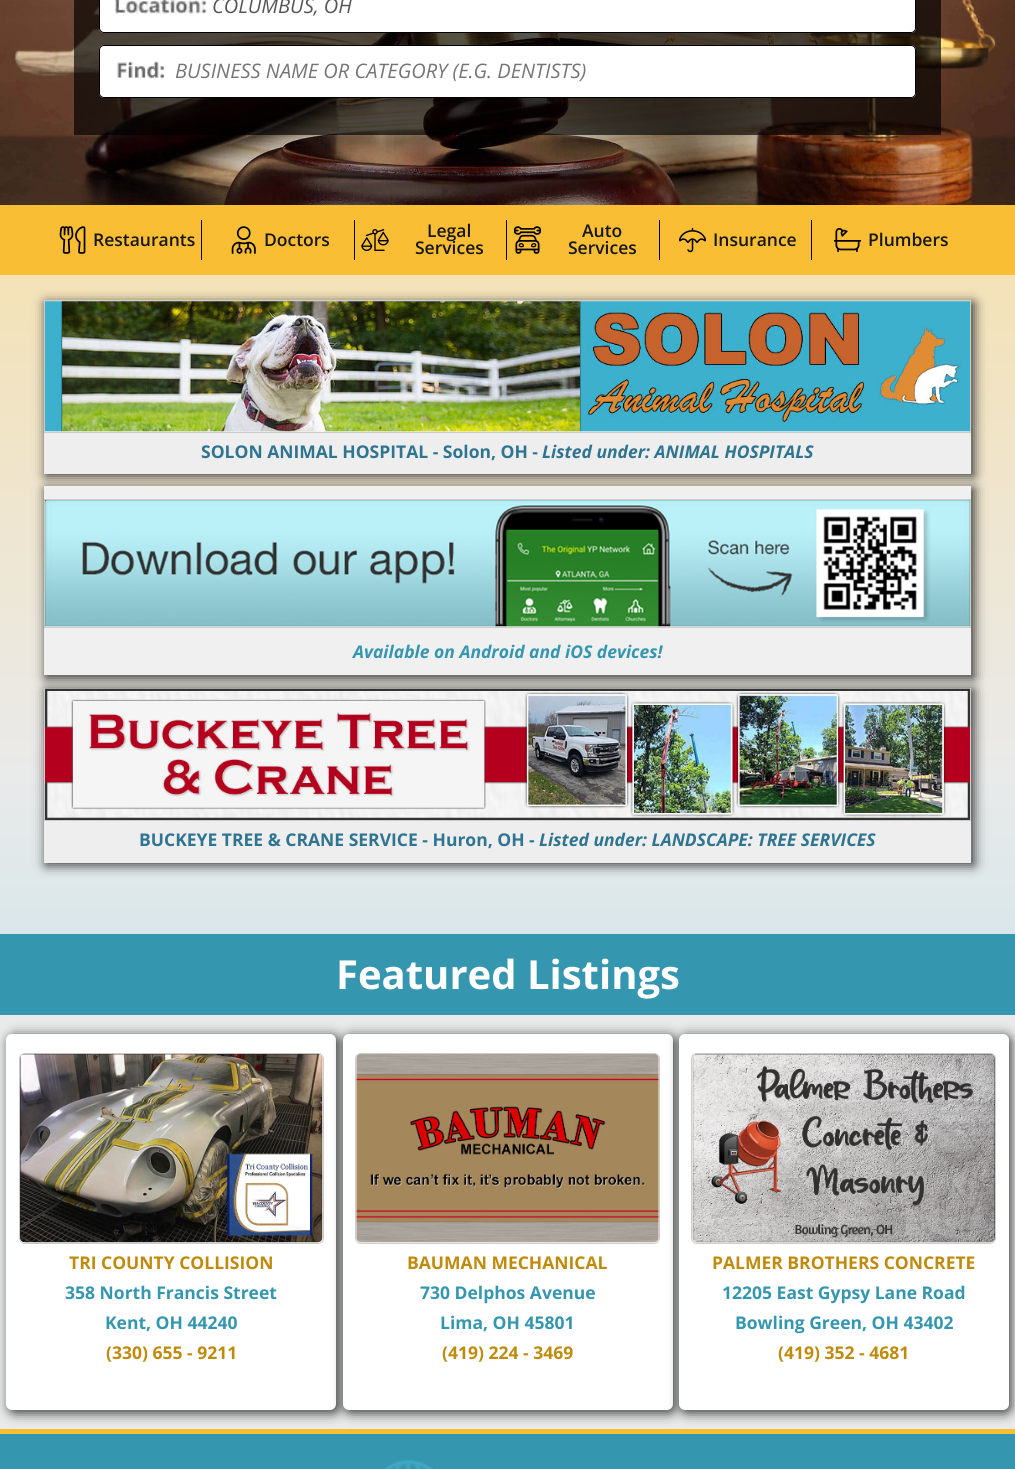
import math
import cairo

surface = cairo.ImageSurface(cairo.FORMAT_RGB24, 1015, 1469)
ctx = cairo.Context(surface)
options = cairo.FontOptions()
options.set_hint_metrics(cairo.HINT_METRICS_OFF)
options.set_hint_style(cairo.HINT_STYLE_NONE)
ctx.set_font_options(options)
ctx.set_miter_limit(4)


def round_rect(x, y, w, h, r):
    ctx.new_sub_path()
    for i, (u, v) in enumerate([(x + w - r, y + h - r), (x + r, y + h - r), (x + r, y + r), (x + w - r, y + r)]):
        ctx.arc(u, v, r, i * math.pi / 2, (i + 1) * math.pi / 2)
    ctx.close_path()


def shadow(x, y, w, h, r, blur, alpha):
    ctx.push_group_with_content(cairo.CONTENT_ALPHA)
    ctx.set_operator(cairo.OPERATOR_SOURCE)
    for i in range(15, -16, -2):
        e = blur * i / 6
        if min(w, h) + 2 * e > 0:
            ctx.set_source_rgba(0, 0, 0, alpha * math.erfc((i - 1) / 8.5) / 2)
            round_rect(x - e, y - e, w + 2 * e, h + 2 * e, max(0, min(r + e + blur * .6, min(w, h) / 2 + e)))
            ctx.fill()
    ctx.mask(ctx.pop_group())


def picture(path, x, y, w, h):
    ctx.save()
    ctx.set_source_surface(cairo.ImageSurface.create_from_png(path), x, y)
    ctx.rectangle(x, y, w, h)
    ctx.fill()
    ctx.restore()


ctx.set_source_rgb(1, 1, 1)
ctx.paint()
gradient = cairo.LinearGradient(507, -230, 508, 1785)
gradient.add_color_stop_rgba(0, 1, 0.855, 0.522, 1)
gradient.add_color_stop_rgba(0.5, 0.914, 0.918, 0.918, 1)
gradient.add_color_stop_rgba(1, 0.529, 0.839, 0.925, 1)
ctx.set_source(gradient)
ctx.rectangle(0, 275, 1015, 659)
ctx.fill()
picture("img1.png", 0, 0, 1015, 205)
ctx.set_source_rgba(0, 0, 0, 0.67)
ctx.rectangle(74, 0, 867, 135)
ctx.fill()
ctx.set_source_rgb(1, 1, 1)
round_rect(99, -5, 817, 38, 5)
ctx.fill()
picture("img2.png", 115, 0, 92, 14)
round_rect(99.5, -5.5, 816, 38, 4.5)
ctx.set_source_rgb(0, 0, 0)
ctx.set_line_width(1)
ctx.stroke()
ctx.select_font_face("Open Sans", cairo.FONT_SLANT_ITALIC)
ctx.set_font_size(20)
ctx.set_source_rgb(0.333, 0.333, 0.333)
ctx.move_to(212, 13)
ctx.show_text("COLUMBUS, OH")
ctx.set_source_rgb(1, 1, 1)
round_rect(99, 45, 817, 53, 5)
ctx.fill()
picture("img3.png", 117, 61, 48, 18)
round_rect(99.5, 45.5, 816, 52, 4.5)
ctx.set_source_rgb(0, 0, 0)
ctx.stroke()
ctx.set_source_rgb(0.459, 0.459, 0.459)
ctx.move_to(175, 78)
ctx.show_text("BUSINESS NAME OR CATEGORY (E.G. DENTISTS)")
ctx.set_source_rgb(0.976, 0.745, 0.204)
ctx.rectangle(0, 205, 1015, 70)
ctx.fill()
ctx.set_source_rgb(0, 0, 0)
ctx.rectangle(201, 220, 1, 40)
ctx.fill()
picture("img4.png", 59, 226, 27, 28)
ctx.select_font_face("Open Sans SemiBold")
ctx.set_font_size(17.5)
ctx.set_source_rgb(0.086, 0.086, 0.086)
ctx.move_to(93, 246)
ctx.show_text("Restaurants")
ctx.set_source_rgb(0, 0, 0)
ctx.rectangle(354, 220, 1, 40)
ctx.fill()
picture("img5.png", 231, 226, 25, 28)
ctx.set_source_rgb(0.086, 0.086, 0.086)
ctx.move_to(264, 246)
ctx.show_text("Doctors")
ctx.set_source_rgb(0, 0, 0)
ctx.rectangle(506, 220, 1, 40)
ctx.fill()
picture("img6.png", 361, 229, 28, 22)
ctx.set_source_rgb(0.086, 0.086, 0.086)
ctx.move_to(427, 237)
ctx.show_text("Legal")
ctx.move_to(415, 254)
ctx.show_text("Services")
ctx.set_source_rgb(0, 0, 0)
ctx.rectangle(659, 220, 1, 40)
ctx.fill()
picture("img7.png", 514, 226, 27, 28)
ctx.set_source_rgb(0.086, 0.086, 0.086)
ctx.move_to(582, 237)
ctx.show_text("Auto")
ctx.move_to(568, 254)
ctx.show_text("Services")
ctx.set_source_rgb(0, 0, 0)
ctx.rectangle(811, 220, 1, 40)
ctx.fill()
picture("img8.png", 679, 227, 27, 26)
ctx.set_source_rgb(0.086, 0.086, 0.086)
ctx.move_to(713, 246)
ctx.show_text("Insurance")
picture("img9.png", 834, 228, 27, 24)
ctx.move_to(868, 246)
ctx.show_text("Plumbers")
ctx.set_source_rgb(0.2, 0.2, 0.2)
shadow(46, 303, 928, 173, 0, 6, 1)
ctx.set_source_rgb(0.933, 0.933, 0.933)
ctx.rectangle(44, 301, 927, 173)
ctx.fill()
ctx.rectangle(44.5, 300.5, 926, 132)
ctx.set_source_rgb(0.8, 0.8, 0.8)
ctx.stroke()
picture("img10.png", 45, 301, 925, 131)
ctx.select_font_face("Open Sans", cairo.FONT_SLANT_NORMAL, cairo.FONT_WEIGHT_BOLD)
ctx.set_source_rgb(0.184, 0.455, 0.565)
ctx.move_to(201, 458)
ctx.show_text("SOLON ANIMAL HOSPITAL - Solon, OH -")
ctx.select_font_face("Open Sans", cairo.FONT_SLANT_ITALIC, cairo.FONT_WEIGHT_BOLD)
ctx.move_to(542, 458)
ctx.show_text("Listed under: ANIMAL HOSPITALS")
ctx.set_source_rgb(0.173, 0.173, 0.173)
shadow(46, 489, 928, 189, 0, 6, 1)
ctx.set_source_rgb(0.2, 0.2, 0.2)
shadow(46, 690, 928, 175, 0, 6, 1)
ctx.set_source_rgb(0.941, 0.941, 0.941)
ctx.rectangle(44, 486, 927, 189)
ctx.fill()
ctx.rectangle(44.5, 499.5, 926, 128)
ctx.set_source_rgb(0.8, 0.8, 0.8)
ctx.stroke()
picture("img11.png", 45, 500, 925, 127)
ctx.set_source_rgb(0.208, 0.588, 0.69)
ctx.move_to(353, 658)
ctx.show_text("Available on Android and iOS devices!")
ctx.set_source_rgb(0.933, 0.933, 0.933)
ctx.rectangle(44, 821, 927, 42)
ctx.fill()
ctx.rectangle(44.5, 688.5, 926, 132)
ctx.set_source_rgb(0.8, 0.8, 0.8)
ctx.stroke()
picture("img12.png", 45, 688, 925, 132)
ctx.select_font_face("Open Sans", cairo.FONT_SLANT_NORMAL, cairo.FONT_WEIGHT_BOLD)
ctx.set_source_rgb(0.184, 0.455, 0.565)
ctx.move_to(139, 846)
ctx.show_text("BUCKEYE TREE & CRANE SERVICE - Huron, OH -")
ctx.select_font_face("Open Sans", cairo.FONT_SLANT_ITALIC, cairo.FONT_WEIGHT_BOLD)
ctx.move_to(539, 846)
ctx.show_text("Listed under: LANDSCAPE: TREE SERVICES")
ctx.set_source_rgb(0.914, 0.918, 0.918)
ctx.rectangle(0, 1015, 1015, 414)
ctx.fill()
ctx.set_source_rgb(0.208, 0.588, 0.69)
ctx.rectangle(0, 934, 1015, 81)
ctx.fill()
ctx.select_font_face("Open Sans", cairo.FONT_SLANT_NORMAL, cairo.FONT_WEIGHT_BOLD)
ctx.set_font_size(40)
ctx.set_source_rgb(1, 1, 1)
ctx.move_to(336, 989)
ctx.show_text("Featured Listings")
ctx.set_source_rgb(0.976, 0.745, 0.204)
ctx.rectangle(0, 1429, 1015, 5)
ctx.fill()
ctx.set_source_rgb(0.2, 0.2, 0.2)
shadow(9, 1036, 330, 377, 6, 6, 1)
ctx.set_source_rgb(1, 1, 1)
round_rect(6, 1034, 330, 376, 6)
ctx.fill()
round_rect(19.5, 1053.5, 304, 190, 5.5)
ctx.set_source_rgb(0.8, 0.8, 0.8)
ctx.stroke()
picture("img13.png", 20, 1053, 303, 190)
ctx.set_font_size(17.5)
ctx.set_source_rgb(0.753, 0.545, 0.047)
ctx.move_to(69, 1269)
ctx.show_text("TRI COUNTY COLLISION")
ctx.set_source_rgb(0.208, 0.588, 0.69)
ctx.move_to(65, 1299)
ctx.show_text("358 North Francis Street")
ctx.move_to(105, 1329)
ctx.show_text("Kent, OH 44240")
ctx.set_source_rgb(0.753, 0.545, 0.047)
ctx.move_to(106, 1359)
ctx.show_text("(330) 655 - 9211")
ctx.set_source_rgb(0.2, 0.2, 0.2)
shadow(345, 1036, 330, 377, 6, 6, 1)
ctx.set_source_rgb(1, 1, 1)
round_rect(343, 1034, 330, 376, 6)
ctx.fill()
round_rect(355.5, 1053.5, 304, 190, 5.5)
ctx.set_source_rgb(0.8, 0.8, 0.8)
ctx.stroke()
picture("img14.png", 356, 1054, 303, 189)
ctx.set_source_rgb(0.753, 0.545, 0.047)
ctx.move_to(407, 1269)
ctx.show_text("BAUMAN MECHANICAL")
ctx.set_source_rgb(0.208, 0.588, 0.69)
ctx.move_to(420, 1299)
ctx.show_text("730 Delphos Avenue")
ctx.move_to(440, 1329)
ctx.show_text("Lima, OH 45801")
ctx.set_source_rgb(0.753, 0.545, 0.047)
ctx.move_to(442, 1359)
ctx.show_text("(419) 224 - 3469")
ctx.set_source_rgb(0.2, 0.2, 0.2)
shadow(681, 1036, 330, 377, 6, 6, 1)
ctx.set_source_rgb(1, 1, 1)
round_rect(679, 1034, 330, 376, 6)
ctx.fill()
round_rect(691.5, 1053.5, 304, 190, 5.5)
ctx.set_source_rgb(0.8, 0.8, 0.8)
ctx.stroke()
picture("img15.png", 692, 1053, 303, 190)
ctx.set_source_rgb(0.753, 0.545, 0.047)
ctx.move_to(712, 1269)
ctx.show_text("PALMER BROTHERS CONCRETE")
ctx.set_source_rgb(0.208, 0.588, 0.69)
ctx.move_to(722, 1299)
ctx.show_text("12205 East Gypsy Lane Road")
ctx.move_to(735, 1329)
ctx.show_text("Bowling Green, OH 43402")
ctx.set_source_rgb(0.753, 0.545, 0.047)
ctx.move_to(778, 1359)
ctx.show_text("(419) 352 - 4681")
ctx.set_source_rgb(0.208, 0.588, 0.69)
ctx.rectangle(0, 1434, 1015, 35)
ctx.fill()
picture("img16.png", 384, 1460, 49, 9)
surface.write_to_png("page.png")
